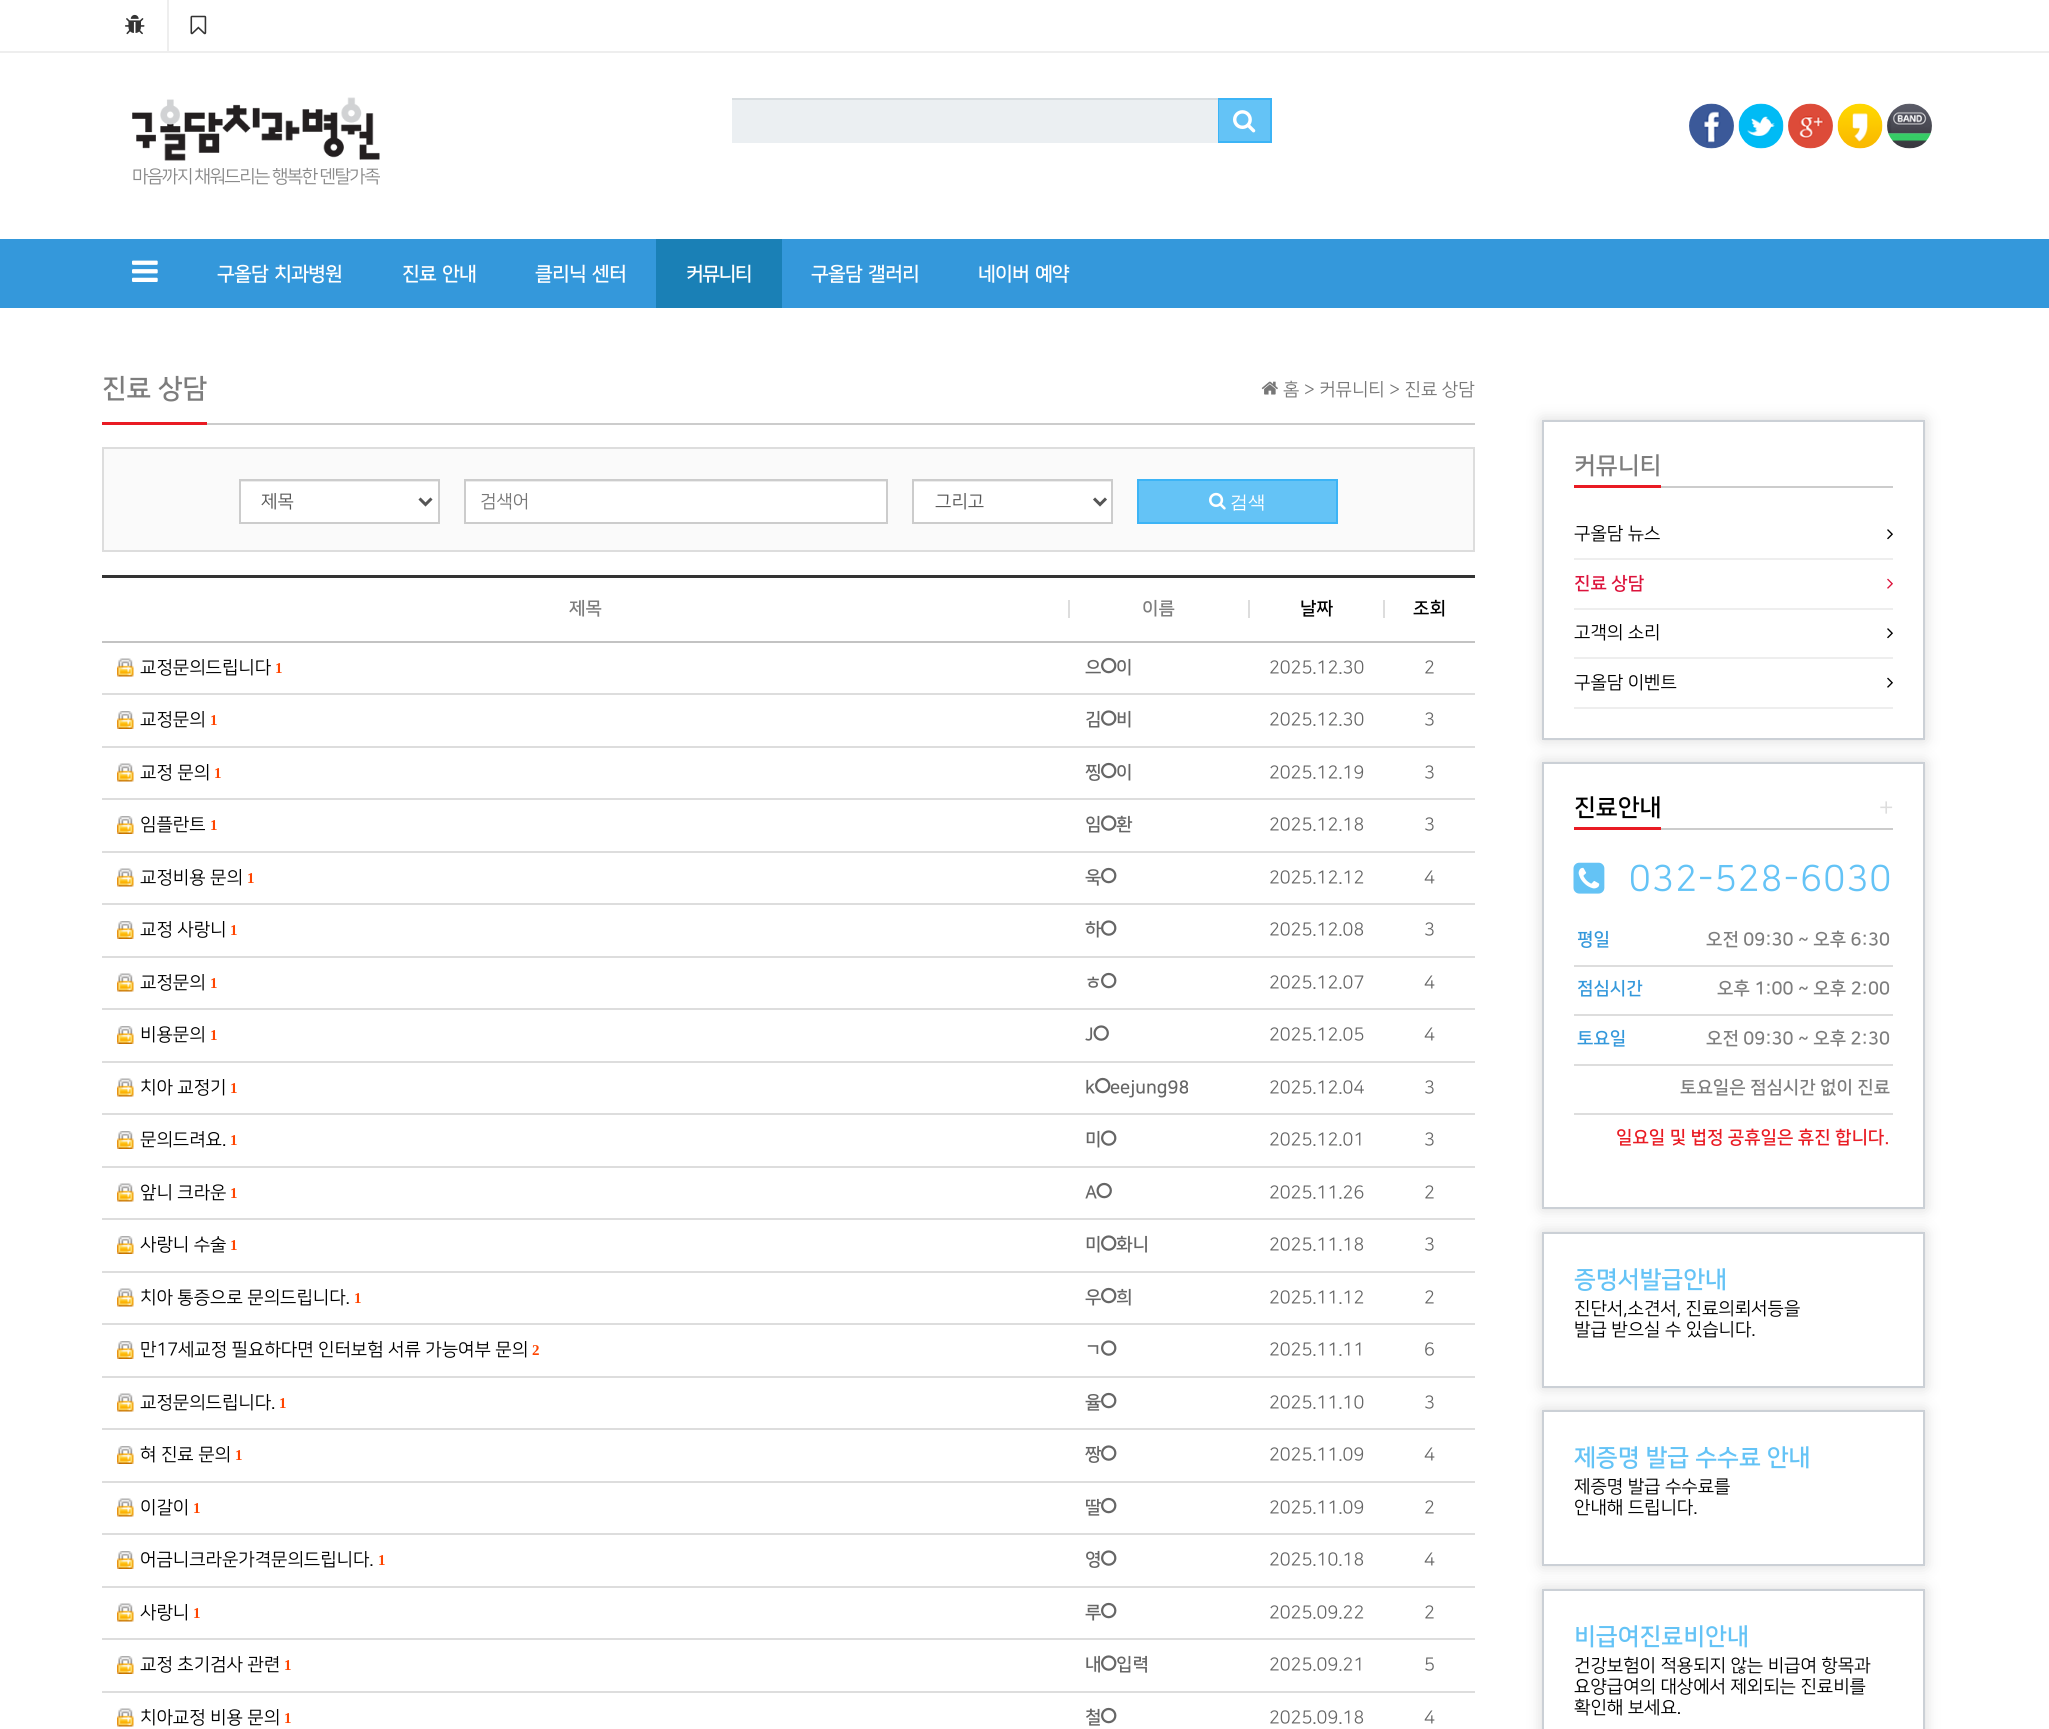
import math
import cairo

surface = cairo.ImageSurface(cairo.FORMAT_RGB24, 2049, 1729)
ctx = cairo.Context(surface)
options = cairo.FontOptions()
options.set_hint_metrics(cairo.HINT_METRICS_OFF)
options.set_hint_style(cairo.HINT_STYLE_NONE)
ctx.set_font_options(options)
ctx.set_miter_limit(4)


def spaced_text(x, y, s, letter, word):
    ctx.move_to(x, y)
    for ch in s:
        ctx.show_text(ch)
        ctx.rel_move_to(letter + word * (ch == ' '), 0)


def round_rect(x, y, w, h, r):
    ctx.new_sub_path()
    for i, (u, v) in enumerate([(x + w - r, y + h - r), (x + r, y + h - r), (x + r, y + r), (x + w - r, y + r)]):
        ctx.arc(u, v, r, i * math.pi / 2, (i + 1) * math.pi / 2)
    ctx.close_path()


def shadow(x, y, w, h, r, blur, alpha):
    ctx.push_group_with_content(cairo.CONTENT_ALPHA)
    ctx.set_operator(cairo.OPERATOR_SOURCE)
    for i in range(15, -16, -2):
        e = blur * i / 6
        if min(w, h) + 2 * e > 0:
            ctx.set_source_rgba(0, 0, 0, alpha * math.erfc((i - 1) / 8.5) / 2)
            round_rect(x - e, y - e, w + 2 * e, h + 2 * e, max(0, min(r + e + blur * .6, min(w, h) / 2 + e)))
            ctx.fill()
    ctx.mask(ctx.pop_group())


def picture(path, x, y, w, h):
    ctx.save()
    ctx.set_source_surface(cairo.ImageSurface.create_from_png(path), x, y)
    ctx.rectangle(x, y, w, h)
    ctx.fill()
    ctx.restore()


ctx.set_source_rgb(1, 1, 1)
ctx.paint()
ctx.set_source_rgb(0.933, 0.933, 0.933)
ctx.rectangle(0, 51, 2049, 2)
ctx.fill()
ctx.rectangle(167, 0, 2, 51)
ctx.fill()
picture("img1.png", 125, 14, 20, 21)
picture("img2.png", 190, 15, 17, 20)
ctx.set_source_rgb(0.392, 0.765, 0.961)
ctx.rectangle(1218, 99, 53, 43)
ctx.fill_preserve()
ctx.set_source_rgb(0.235, 0.706, 0.961)
ctx.stroke()
ctx.set_source_rgb(0.918, 0.937, 0.949)
ctx.rectangle(732, 100, 486, 43)
ctx.fill()
ctx.set_source_rgb(0.847, 0.867, 0.878)
ctx.rectangle(732, 98, 486, 2)
ctx.fill()
picture("img3.png", 1233, 110, 23, 23)
picture("img4.png", 1689, 103, 45, 46)
picture("img5.png", 1738, 103, 46, 46)
picture("img6.png", 1788, 103, 45, 46)
picture("img7.png", 1837, 103, 46, 46)
picture("img8.png", 1887, 103, 45, 46)
picture("img9.png", 132, 97, 248, 64)
ctx.select_font_face("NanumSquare")
ctx.set_font_size(18)
ctx.set_source_rgb(0.533, 0.533, 0.533)
spaced_text(132, 182, "마음까지 채워드리는 행복한 덴탈가족", -1.5, 0)
ctx.set_source_rgb(0.204, 0.596, 0.859)
ctx.rectangle(0, 239, 2049, 69)
ctx.fill()
picture("img10.png", 132, 260, 26, 22)
ctx.select_font_face("NanumSquare", cairo.FONT_SLANT_NORMAL, cairo.FONT_WEIGHT_BOLD)
ctx.set_font_size(19.5)
ctx.set_source_rgb(1, 1, 1)
spaced_text(217, 280, "구올담 치과병원", -0.75, 2)
spaced_text(402, 280, "진료 안내", -0.75, 2)
spaced_text(535, 280, "클리닉 센터", -0.75, 2)
ctx.set_source_rgb(0.102, 0.502, 0.714)
ctx.rectangle(656, 239, 126, 69)
ctx.fill()
ctx.set_source_rgb(1, 1, 1)
spaced_text(686, 280, "커뮤니티", -1.5, 0)
spaced_text(811, 280, "구올담 갤러리", -0.75, 2)
spaced_text(978, 280, "네이버 예약", -0.75, 2)
ctx.set_source_rgb(0.8, 0.8, 0.8)
ctx.rectangle(207, 423, 1268, 2)
ctx.fill()
ctx.set_source_rgb(0.914, 0.106, 0.137)
ctx.rectangle(102, 422, 105, 3)
ctx.fill()
ctx.set_font_size(27)
ctx.set_source_rgb(0.49, 0.49, 0.49)
ctx.move_to(102, 397)
ctx.show_text("진료 상담")
picture("img11.png", 1261, 381, 17, 14)
ctx.select_font_face("NanumSquare")
ctx.set_font_size(18)
ctx.set_source_rgb(0.467, 0.467, 0.467)
ctx.move_to(1283, 395)
ctx.show_text("홈 > 커뮤니티 > 진료 상담")
ctx.set_source_rgb(0.98, 0.98, 0.98)
ctx.rectangle(103, 448, 1371, 103)
ctx.fill_preserve()
ctx.set_source_rgb(0.867, 0.867, 0.867)
ctx.stroke()
ctx.set_source_rgb(1, 1, 1)
ctx.rectangle(241, 482, 197, 40)
ctx.fill()
ctx.set_source_rgb(0.925, 0.925, 0.925)
ctx.rectangle(240, 481, 198, 1)
ctx.fill()
ctx.rectangle(240, 480, 199, 43)
ctx.set_source_rgb(0.8, 0.8, 0.8)
ctx.stroke()
ctx.new_path()
ctx.move_to(419.5, 498.5)
ctx.line_to(425.5, 504.5)
ctx.line_to(431.5, 498.5)
ctx.set_source_rgb(0.333, 0.333, 0.333)
ctx.set_line_width(3)
ctx.stroke()
ctx.move_to(261, 507)
ctx.show_text("제목")
ctx.set_source_rgb(1, 1, 1)
ctx.rectangle(466, 482, 420, 40)
ctx.fill()
ctx.set_source_rgb(0.925, 0.925, 0.925)
ctx.rectangle(465, 481, 422, 1)
ctx.fill()
ctx.rectangle(465, 480, 422, 43)
ctx.set_source_rgb(0.8, 0.8, 0.8)
ctx.set_line_width(2)
ctx.stroke()
ctx.set_source_rgb(0.467, 0.467, 0.467)
ctx.move_to(480, 507)
ctx.show_text("검색어")
ctx.set_source_rgb(1, 1, 1)
ctx.rectangle(914, 482, 197, 40)
ctx.fill()
ctx.set_source_rgb(0.925, 0.925, 0.925)
ctx.rectangle(914, 481, 198, 1)
ctx.fill()
ctx.rectangle(913, 480, 199, 43)
ctx.set_source_rgb(0.8, 0.8, 0.8)
ctx.stroke()
ctx.new_path()
ctx.move_to(1094, 498.5)
ctx.line_to(1100, 504.5)
ctx.line_to(1106, 498.5)
ctx.set_source_rgb(0.333, 0.333, 0.333)
ctx.set_line_width(3)
ctx.stroke()
ctx.move_to(935, 507)
ctx.show_text("그리고")
ctx.set_source_rgb(0.392, 0.765, 0.961)
ctx.rectangle(1138, 480, 199, 43)
ctx.fill_preserve()
ctx.set_source_rgb(0.235, 0.706, 0.961)
ctx.set_line_width(2)
ctx.stroke()
picture("img12.png", 1209, 492, 17, 18)
ctx.select_font_face("WenQuanYi Zen Hei Medium")
ctx.set_source_rgb(1, 1, 1)
ctx.move_to(1230, 508)
ctx.show_text("검색")
ctx.set_source_rgb(0.2, 0.2, 0.2)
ctx.rectangle(102, 575, 1373, 3)
ctx.fill()
ctx.set_source_rgb(0.765, 0.765, 0.765)
ctx.rectangle(102, 641, 1373, 2)
ctx.fill()
ctx.set_source_rgb(0.867, 0.867, 0.867)
ctx.rectangle(1068, 600, 2, 18)
ctx.fill()
ctx.select_font_face("NanumSquare", cairo.FONT_SLANT_NORMAL, cairo.FONT_WEIGHT_BOLD)
ctx.set_source_rgb(0.49, 0.49, 0.49)
ctx.move_to(569, 614)
ctx.show_text("제목")
ctx.set_source_rgb(0.867, 0.867, 0.867)
ctx.rectangle(1248, 600, 2, 18)
ctx.fill()
ctx.set_source_rgb(0.49, 0.49, 0.49)
ctx.move_to(1142, 614)
ctx.show_text("이름")
ctx.set_source_rgb(0.867, 0.867, 0.867)
ctx.rectangle(1383, 600, 2, 18)
ctx.fill()
ctx.set_source_rgb(0, 0, 0)
ctx.move_to(1300, 614)
ctx.show_text("날짜")
ctx.move_to(1413, 614)
ctx.show_text("조회")
ctx.set_source_rgb(0.867, 0.867, 0.867)
ctx.rectangle(102, 693, 1373, 2)
ctx.fill()
picture("img13.png", 117, 658, 17, 19)
ctx.select_font_face("NanumSquare")
ctx.set_source_rgb(0, 0, 0)
ctx.move_to(140, 673)
ctx.show_text("교정문의드립니다")
ctx.select_font_face("Liberation Serif", cairo.FONT_SLANT_NORMAL, cairo.FONT_WEIGHT_BOLD)
ctx.set_font_size(15)
ctx.set_source_rgb(1, 0.271, 0)
spaced_text(275, 673, "1", -1.5, 0)
ctx.select_font_face("NanumSquare", cairo.FONT_SLANT_NORMAL, cairo.FONT_WEIGHT_BOLD)
ctx.set_font_size(18)
ctx.set_source_rgb(0.4, 0.4, 0.4)
ctx.move_to(1085, 673)
ctx.show_text("으")
picture("img14.png", 1101, 657, 16, 17)
ctx.move_to(1116, 673)
ctx.show_text("이")
ctx.select_font_face("NanumSquare")
ctx.move_to(1269, 673)
ctx.show_text("2025.12.30")
ctx.move_to(1424, 673)
ctx.show_text("2")
ctx.set_source_rgb(0.867, 0.867, 0.867)
ctx.rectangle(102, 746, 1373, 2)
ctx.fill()
picture("img15.png", 117, 711, 17, 18)
ctx.set_source_rgb(0, 0, 0)
ctx.move_to(140, 725)
ctx.show_text("교정문의")
ctx.select_font_face("Liberation Serif", cairo.FONT_SLANT_NORMAL, cairo.FONT_WEIGHT_BOLD)
ctx.set_font_size(15)
ctx.set_source_rgb(1, 0.271, 0)
spaced_text(210, 725, "1", -1.5, 0)
ctx.select_font_face("NanumSquare", cairo.FONT_SLANT_NORMAL, cairo.FONT_WEIGHT_BOLD)
ctx.set_font_size(18)
ctx.set_source_rgb(0.4, 0.4, 0.4)
ctx.move_to(1085, 725)
ctx.show_text("김")
picture("img16.png", 1101, 710, 16, 16)
ctx.move_to(1116, 725)
ctx.show_text("비")
ctx.select_font_face("NanumSquare")
ctx.move_to(1269, 725)
ctx.show_text("2025.12.30")
ctx.move_to(1424, 725)
ctx.show_text("3")
ctx.set_source_rgb(0.867, 0.867, 0.867)
ctx.rectangle(102, 798, 1373, 2)
ctx.fill()
picture("img13.png", 117, 763, 17, 19)
ctx.set_source_rgb(0, 0, 0)
ctx.move_to(140, 778)
ctx.show_text("교정 문의")
ctx.select_font_face("Liberation Serif", cairo.FONT_SLANT_NORMAL, cairo.FONT_WEIGHT_BOLD)
ctx.set_font_size(15)
ctx.set_source_rgb(1, 0.271, 0)
spaced_text(214, 778, "1", -1.5, 0)
ctx.select_font_face("NanumSquare", cairo.FONT_SLANT_NORMAL, cairo.FONT_WEIGHT_BOLD)
ctx.set_font_size(18)
ctx.set_source_rgb(0.4, 0.4, 0.4)
ctx.move_to(1085, 778)
ctx.show_text("찡")
picture("img14.png", 1101, 762, 16, 17)
ctx.move_to(1116, 778)
ctx.show_text("이")
ctx.select_font_face("NanumSquare")
ctx.move_to(1269, 778)
ctx.show_text("2025.12.19")
ctx.move_to(1424, 778)
ctx.show_text("3")
ctx.set_source_rgb(0.867, 0.867, 0.867)
ctx.rectangle(102, 851, 1373, 2)
ctx.fill()
picture("img15.png", 117, 816, 17, 18)
ctx.set_source_rgb(0, 0, 0)
ctx.move_to(140, 830)
ctx.show_text("임플란트")
ctx.select_font_face("Liberation Serif", cairo.FONT_SLANT_NORMAL, cairo.FONT_WEIGHT_BOLD)
ctx.set_font_size(15)
ctx.set_source_rgb(1, 0.271, 0)
spaced_text(210, 830, "1", -1.5, 0)
ctx.select_font_face("NanumSquare", cairo.FONT_SLANT_NORMAL, cairo.FONT_WEIGHT_BOLD)
ctx.set_font_size(18)
ctx.set_source_rgb(0.4, 0.4, 0.4)
ctx.move_to(1085, 830)
ctx.show_text("임")
picture("img16.png", 1101, 815, 16, 16)
ctx.move_to(1116, 830)
ctx.show_text("환")
ctx.select_font_face("NanumSquare")
ctx.move_to(1269, 830)
ctx.show_text("2025.12.18")
ctx.move_to(1424, 830)
ctx.show_text("3")
ctx.set_source_rgb(0.867, 0.867, 0.867)
ctx.rectangle(102, 903, 1373, 2)
ctx.fill()
picture("img13.png", 117, 868, 17, 19)
ctx.set_source_rgb(0, 0, 0)
ctx.move_to(140, 883)
ctx.show_text("교정비용 문의")
ctx.select_font_face("Liberation Serif", cairo.FONT_SLANT_NORMAL, cairo.FONT_WEIGHT_BOLD)
ctx.set_font_size(15)
ctx.set_source_rgb(1, 0.271, 0)
spaced_text(247, 883, "1", -1.5, 0)
ctx.select_font_face("NanumSquare", cairo.FONT_SLANT_NORMAL, cairo.FONT_WEIGHT_BOLD)
ctx.set_font_size(18)
ctx.set_source_rgb(0.4, 0.4, 0.4)
ctx.move_to(1085, 883)
ctx.show_text("욱")
picture("img14.png", 1101, 867, 16, 17)
ctx.select_font_face("NanumSquare")
ctx.move_to(1269, 883)
ctx.show_text("2025.12.12")
ctx.move_to(1424, 883)
ctx.show_text("4")
ctx.set_source_rgb(0.867, 0.867, 0.867)
ctx.rectangle(102, 956, 1373, 2)
ctx.fill()
picture("img15.png", 117, 921, 17, 18)
ctx.set_source_rgb(0, 0, 0)
ctx.move_to(140, 935)
ctx.show_text("교정 사랑니")
ctx.select_font_face("Liberation Serif", cairo.FONT_SLANT_NORMAL, cairo.FONT_WEIGHT_BOLD)
ctx.set_font_size(15)
ctx.set_source_rgb(1, 0.271, 0)
spaced_text(230, 935, "1", -1.5, 0)
ctx.select_font_face("NanumSquare", cairo.FONT_SLANT_NORMAL, cairo.FONT_WEIGHT_BOLD)
ctx.set_font_size(18)
ctx.set_source_rgb(0.4, 0.4, 0.4)
ctx.move_to(1085, 935)
ctx.show_text("하")
picture("img16.png", 1101, 920, 16, 16)
ctx.select_font_face("NanumSquare")
ctx.move_to(1269, 935)
ctx.show_text("2025.12.08")
ctx.move_to(1424, 935)
ctx.show_text("3")
ctx.set_source_rgb(0.867, 0.867, 0.867)
ctx.rectangle(102, 1008, 1373, 2)
ctx.fill()
picture("img13.png", 117, 973, 17, 19)
ctx.set_source_rgb(0, 0, 0)
ctx.move_to(140, 988)
ctx.show_text("교정문의")
ctx.select_font_face("Liberation Serif", cairo.FONT_SLANT_NORMAL, cairo.FONT_WEIGHT_BOLD)
ctx.set_font_size(15)
ctx.set_source_rgb(1, 0.271, 0)
spaced_text(210, 988, "1", -1.5, 0)
ctx.select_font_face("NanumSquare", cairo.FONT_SLANT_NORMAL, cairo.FONT_WEIGHT_BOLD)
ctx.set_font_size(18)
ctx.set_source_rgb(0.4, 0.4, 0.4)
ctx.move_to(1085, 988)
ctx.show_text("ㅎ")
picture("img14.png", 1101, 972, 16, 17)
ctx.select_font_face("NanumSquare")
ctx.move_to(1269, 988)
ctx.show_text("2025.12.07")
ctx.move_to(1424, 988)
ctx.show_text("4")
ctx.set_source_rgb(0.867, 0.867, 0.867)
ctx.rectangle(102, 1061, 1373, 2)
ctx.fill()
picture("img15.png", 117, 1026, 17, 18)
ctx.set_source_rgb(0, 0, 0)
ctx.move_to(140, 1040)
ctx.show_text("비용문의")
ctx.select_font_face("Liberation Serif", cairo.FONT_SLANT_NORMAL, cairo.FONT_WEIGHT_BOLD)
ctx.set_font_size(15)
ctx.set_source_rgb(1, 0.271, 0)
spaced_text(210, 1040, "1", -1.5, 0)
ctx.select_font_face("NanumSquare", cairo.FONT_SLANT_NORMAL, cairo.FONT_WEIGHT_BOLD)
ctx.set_font_size(18)
ctx.set_source_rgb(0.4, 0.4, 0.4)
ctx.move_to(1085, 1040)
ctx.show_text("J")
picture("img17.png", 1093, 1025, 16, 16)
ctx.select_font_face("NanumSquare")
ctx.move_to(1269, 1040)
ctx.show_text("2025.12.05")
ctx.move_to(1424, 1040)
ctx.show_text("4")
ctx.set_source_rgb(0.867, 0.867, 0.867)
ctx.rectangle(102, 1113, 1373, 2)
ctx.fill()
picture("img13.png", 117, 1078, 17, 19)
ctx.set_source_rgb(0, 0, 0)
ctx.move_to(140, 1093)
ctx.show_text("치아 교정기")
ctx.select_font_face("Liberation Serif", cairo.FONT_SLANT_NORMAL, cairo.FONT_WEIGHT_BOLD)
ctx.set_font_size(15)
ctx.set_source_rgb(1, 0.271, 0)
spaced_text(230, 1093, "1", -1.5, 0)
ctx.select_font_face("NanumSquare", cairo.FONT_SLANT_NORMAL, cairo.FONT_WEIGHT_BOLD)
ctx.set_font_size(18)
ctx.set_source_rgb(0.4, 0.4, 0.4)
ctx.move_to(1085, 1093)
ctx.show_text("k")
picture("img14.png", 1095, 1077, 16, 17)
ctx.move_to(1110, 1093)
ctx.show_text("eejung98")
ctx.select_font_face("NanumSquare")
ctx.move_to(1269, 1093)
ctx.show_text("2025.12.04")
ctx.move_to(1424, 1093)
ctx.show_text("3")
ctx.set_source_rgb(0.867, 0.867, 0.867)
ctx.rectangle(102, 1166, 1373, 2)
ctx.fill()
picture("img15.png", 117, 1131, 17, 18)
ctx.set_source_rgb(0, 0, 0)
ctx.move_to(140, 1145)
ctx.show_text("문의드려요.")
ctx.select_font_face("Liberation Serif", cairo.FONT_SLANT_NORMAL, cairo.FONT_WEIGHT_BOLD)
ctx.set_font_size(15)
ctx.set_source_rgb(1, 0.271, 0)
spaced_text(230, 1145, "1", -1.5, 0)
ctx.select_font_face("NanumSquare", cairo.FONT_SLANT_NORMAL, cairo.FONT_WEIGHT_BOLD)
ctx.set_font_size(18)
ctx.set_source_rgb(0.4, 0.4, 0.4)
ctx.move_to(1085, 1145)
ctx.show_text("미")
picture("img16.png", 1101, 1130, 16, 16)
ctx.select_font_face("NanumSquare")
ctx.move_to(1269, 1145)
ctx.show_text("2025.12.01")
ctx.move_to(1424, 1145)
ctx.show_text("3")
ctx.set_source_rgb(0.867, 0.867, 0.867)
ctx.rectangle(102, 1218, 1373, 2)
ctx.fill()
picture("img13.png", 117, 1183, 17, 19)
ctx.set_source_rgb(0, 0, 0)
ctx.move_to(140, 1198)
ctx.show_text("앞니 크라운")
ctx.select_font_face("Liberation Serif", cairo.FONT_SLANT_NORMAL, cairo.FONT_WEIGHT_BOLD)
ctx.set_font_size(15)
ctx.set_source_rgb(1, 0.271, 0)
spaced_text(230, 1198, "1", -1.5, 0)
ctx.select_font_face("NanumSquare", cairo.FONT_SLANT_NORMAL, cairo.FONT_WEIGHT_BOLD)
ctx.set_font_size(18)
ctx.set_source_rgb(0.4, 0.4, 0.4)
ctx.move_to(1085, 1198)
ctx.show_text("A")
picture("img18.png", 1096, 1182, 16, 17)
ctx.select_font_face("NanumSquare")
ctx.move_to(1269, 1198)
ctx.show_text("2025.11.26")
ctx.move_to(1424, 1198)
ctx.show_text("2")
ctx.set_source_rgb(0.867, 0.867, 0.867)
ctx.rectangle(102, 1271, 1373, 2)
ctx.fill()
picture("img15.png", 117, 1236, 17, 18)
ctx.set_source_rgb(0, 0, 0)
ctx.move_to(140, 1250)
ctx.show_text("사랑니 수술")
ctx.select_font_face("Liberation Serif", cairo.FONT_SLANT_NORMAL, cairo.FONT_WEIGHT_BOLD)
ctx.set_font_size(15)
ctx.set_source_rgb(1, 0.271, 0)
spaced_text(230, 1250, "1", -1.5, 0)
ctx.select_font_face("NanumSquare", cairo.FONT_SLANT_NORMAL, cairo.FONT_WEIGHT_BOLD)
ctx.set_font_size(18)
ctx.set_source_rgb(0.4, 0.4, 0.4)
ctx.move_to(1085, 1250)
ctx.show_text("미")
picture("img16.png", 1101, 1235, 16, 16)
ctx.move_to(1116, 1250)
ctx.show_text("화니")
ctx.select_font_face("NanumSquare")
ctx.move_to(1269, 1250)
ctx.show_text("2025.11.18")
ctx.move_to(1424, 1250)
ctx.show_text("3")
ctx.set_source_rgb(0.867, 0.867, 0.867)
ctx.rectangle(102, 1323, 1373, 2)
ctx.fill()
picture("img13.png", 117, 1288, 17, 19)
ctx.set_source_rgb(0, 0, 0)
ctx.move_to(140, 1303)
ctx.show_text("치아 통증으로 문의드립니다.")
ctx.select_font_face("Liberation Serif", cairo.FONT_SLANT_NORMAL, cairo.FONT_WEIGHT_BOLD)
ctx.set_font_size(15)
ctx.set_source_rgb(1, 0.271, 0)
spaced_text(354, 1303, "1", -1.5, 0)
ctx.select_font_face("NanumSquare", cairo.FONT_SLANT_NORMAL, cairo.FONT_WEIGHT_BOLD)
ctx.set_font_size(18)
ctx.set_source_rgb(0.4, 0.4, 0.4)
ctx.move_to(1085, 1303)
ctx.show_text("우")
picture("img14.png", 1101, 1287, 16, 17)
ctx.move_to(1116, 1303)
ctx.show_text("희")
ctx.select_font_face("NanumSquare")
ctx.move_to(1269, 1303)
ctx.show_text("2025.11.12")
ctx.move_to(1424, 1303)
ctx.show_text("2")
ctx.set_source_rgb(0.867, 0.867, 0.867)
ctx.rectangle(102, 1376, 1373, 2)
ctx.fill()
picture("img15.png", 117, 1341, 17, 18)
ctx.set_source_rgb(0, 0, 0)
ctx.move_to(140, 1355)
ctx.show_text("만17세교정 필요하다면 인터보험 서류 가능여부 문의")
ctx.select_font_face("Liberation Serif", cairo.FONT_SLANT_NORMAL, cairo.FONT_WEIGHT_BOLD)
ctx.set_font_size(15)
ctx.set_source_rgb(1, 0.271, 0)
spaced_text(532, 1355, "2", -1.5, 0)
ctx.select_font_face("NanumSquare", cairo.FONT_SLANT_NORMAL, cairo.FONT_WEIGHT_BOLD)
ctx.set_font_size(18)
ctx.set_source_rgb(0.4, 0.4, 0.4)
ctx.move_to(1085, 1355)
ctx.show_text("ㄱ")
picture("img16.png", 1101, 1340, 16, 16)
ctx.select_font_face("NanumSquare")
ctx.move_to(1269, 1355)
ctx.show_text("2025.11.11")
ctx.move_to(1424, 1355)
ctx.show_text("6")
ctx.set_source_rgb(0.867, 0.867, 0.867)
ctx.rectangle(102, 1428, 1373, 2)
ctx.fill()
picture("img13.png", 117, 1393, 17, 19)
ctx.set_source_rgb(0, 0, 0)
ctx.move_to(140, 1408)
ctx.show_text("교정문의드립니다.")
ctx.select_font_face("Liberation Serif", cairo.FONT_SLANT_NORMAL, cairo.FONT_WEIGHT_BOLD)
ctx.set_font_size(15)
ctx.set_source_rgb(1, 0.271, 0)
spaced_text(279, 1408, "1", -1.5, 0)
ctx.select_font_face("NanumSquare", cairo.FONT_SLANT_NORMAL, cairo.FONT_WEIGHT_BOLD)
ctx.set_font_size(18)
ctx.set_source_rgb(0.4, 0.4, 0.4)
ctx.move_to(1085, 1408)
ctx.show_text("율")
picture("img14.png", 1101, 1392, 16, 17)
ctx.select_font_face("NanumSquare")
ctx.move_to(1269, 1408)
ctx.show_text("2025.11.10")
ctx.move_to(1424, 1408)
ctx.show_text("3")
ctx.set_source_rgb(0.867, 0.867, 0.867)
ctx.rectangle(102, 1481, 1373, 2)
ctx.fill()
picture("img15.png", 117, 1446, 17, 18)
ctx.set_source_rgb(0, 0, 0)
ctx.move_to(140, 1460)
ctx.show_text("혀 진료 문의")
ctx.select_font_face("Liberation Serif", cairo.FONT_SLANT_NORMAL, cairo.FONT_WEIGHT_BOLD)
ctx.set_font_size(15)
ctx.set_source_rgb(1, 0.271, 0)
spaced_text(235, 1460, "1", -1.5, 0)
ctx.select_font_face("NanumSquare", cairo.FONT_SLANT_NORMAL, cairo.FONT_WEIGHT_BOLD)
ctx.set_font_size(18)
ctx.set_source_rgb(0.4, 0.4, 0.4)
ctx.move_to(1085, 1460)
ctx.show_text("짱")
picture("img16.png", 1101, 1445, 16, 16)
ctx.select_font_face("NanumSquare")
ctx.move_to(1269, 1460)
ctx.show_text("2025.11.09")
ctx.move_to(1424, 1460)
ctx.show_text("4")
ctx.set_source_rgb(0.867, 0.867, 0.867)
ctx.rectangle(102, 1533, 1373, 2)
ctx.fill()
picture("img13.png", 117, 1498, 17, 19)
ctx.set_source_rgb(0, 0, 0)
ctx.move_to(140, 1513)
ctx.show_text("이갈이")
ctx.select_font_face("Liberation Serif", cairo.FONT_SLANT_NORMAL, cairo.FONT_WEIGHT_BOLD)
ctx.set_font_size(15)
ctx.set_source_rgb(1, 0.271, 0)
spaced_text(193, 1513, "1", -1.5, 0)
ctx.select_font_face("NanumSquare", cairo.FONT_SLANT_NORMAL, cairo.FONT_WEIGHT_BOLD)
ctx.set_font_size(18)
ctx.set_source_rgb(0.4, 0.4, 0.4)
ctx.move_to(1085, 1513)
ctx.show_text("딸")
picture("img14.png", 1101, 1497, 16, 17)
ctx.select_font_face("NanumSquare")
ctx.move_to(1269, 1513)
ctx.show_text("2025.11.09")
ctx.move_to(1424, 1513)
ctx.show_text("2")
ctx.set_source_rgb(0.867, 0.867, 0.867)
ctx.rectangle(102, 1586, 1373, 2)
ctx.fill()
picture("img15.png", 117, 1551, 17, 18)
ctx.set_source_rgb(0, 0, 0)
ctx.move_to(140, 1565)
ctx.show_text("어금니크라운가격문의드립니다.")
ctx.select_font_face("Liberation Serif", cairo.FONT_SLANT_NORMAL, cairo.FONT_WEIGHT_BOLD)
ctx.set_font_size(15)
ctx.set_source_rgb(1, 0.271, 0)
spaced_text(378, 1565, "1", -1.5, 0)
ctx.select_font_face("NanumSquare", cairo.FONT_SLANT_NORMAL, cairo.FONT_WEIGHT_BOLD)
ctx.set_font_size(18)
ctx.set_source_rgb(0.4, 0.4, 0.4)
ctx.move_to(1085, 1565)
ctx.show_text("영")
picture("img16.png", 1101, 1550, 16, 16)
ctx.select_font_face("NanumSquare")
ctx.move_to(1269, 1565)
ctx.show_text("2025.10.18")
ctx.move_to(1424, 1565)
ctx.show_text("4")
ctx.set_source_rgb(0.867, 0.867, 0.867)
ctx.rectangle(102, 1638, 1373, 2)
ctx.fill()
picture("img13.png", 117, 1603, 17, 19)
ctx.set_source_rgb(0, 0, 0)
ctx.move_to(140, 1618)
ctx.show_text("사랑니")
ctx.select_font_face("Liberation Serif", cairo.FONT_SLANT_NORMAL, cairo.FONT_WEIGHT_BOLD)
ctx.set_font_size(15)
ctx.set_source_rgb(1, 0.271, 0)
spaced_text(193, 1618, "1", -1.5, 0)
ctx.select_font_face("NanumSquare", cairo.FONT_SLANT_NORMAL, cairo.FONT_WEIGHT_BOLD)
ctx.set_font_size(18)
ctx.set_source_rgb(0.4, 0.4, 0.4)
ctx.move_to(1085, 1618)
ctx.show_text("루")
picture("img14.png", 1101, 1602, 16, 17)
ctx.select_font_face("NanumSquare")
ctx.move_to(1269, 1618)
ctx.show_text("2025.09.22")
ctx.move_to(1424, 1618)
ctx.show_text("2")
ctx.set_source_rgb(0.867, 0.867, 0.867)
ctx.rectangle(102, 1691, 1373, 2)
ctx.fill()
picture("img15.png", 117, 1656, 17, 18)
ctx.set_source_rgb(0, 0, 0)
ctx.move_to(140, 1670)
ctx.show_text("교정 초기검사 관련")
ctx.select_font_face("Liberation Serif", cairo.FONT_SLANT_NORMAL, cairo.FONT_WEIGHT_BOLD)
ctx.set_font_size(15)
ctx.set_source_rgb(1, 0.271, 0)
spaced_text(284, 1670, "1", -1.5, 0)
ctx.select_font_face("NanumSquare", cairo.FONT_SLANT_NORMAL, cairo.FONT_WEIGHT_BOLD)
ctx.set_font_size(18)
ctx.set_source_rgb(0.4, 0.4, 0.4)
ctx.move_to(1085, 1670)
ctx.show_text("내")
picture("img16.png", 1101, 1655, 16, 16)
ctx.move_to(1116, 1670)
ctx.show_text("입력")
ctx.select_font_face("NanumSquare")
ctx.move_to(1269, 1670)
ctx.show_text("2025.09.21")
ctx.move_to(1424, 1670)
ctx.show_text("5")
picture("img13.png", 117, 1708, 17, 19)
ctx.set_source_rgb(0, 0, 0)
ctx.move_to(140, 1723)
ctx.show_text("치아교정 비용 문의")
ctx.select_font_face("Liberation Serif", cairo.FONT_SLANT_NORMAL, cairo.FONT_WEIGHT_BOLD)
ctx.set_font_size(15)
ctx.set_source_rgb(1, 0.271, 0)
spaced_text(284, 1723, "1", -1.5, 0)
ctx.select_font_face("NanumSquare", cairo.FONT_SLANT_NORMAL, cairo.FONT_WEIGHT_BOLD)
ctx.set_font_size(18)
ctx.set_source_rgb(0.4, 0.4, 0.4)
ctx.move_to(1085, 1723)
ctx.show_text("철")
picture("img14.png", 1101, 1707, 16, 17)
ctx.select_font_face("NanumSquare")
ctx.move_to(1269, 1723)
ctx.show_text("2025.09.18")
ctx.move_to(1424, 1723)
ctx.show_text("4")
ctx.set_source_rgb(0.851, 0.851, 0.851)
shadow(1542, 420, 383, 320, 0, 7.5, 1)
ctx.set_source_rgb(1, 1, 1)
ctx.rectangle(1543, 421, 381, 318)
ctx.fill_preserve()
ctx.set_source_rgb(0.796, 0.816, 0.839)
ctx.stroke()
ctx.set_source_rgb(0.8, 0.8, 0.8)
ctx.rectangle(1661, 486, 232, 2)
ctx.fill()
ctx.set_source_rgb(0.914, 0.106, 0.137)
ctx.rectangle(1574, 485, 87, 3)
ctx.fill()
ctx.select_font_face("NanumSquare", cairo.FONT_SLANT_NORMAL, cairo.FONT_WEIGHT_BOLD)
ctx.set_font_size(24)
ctx.set_source_rgb(0.49, 0.49, 0.49)
ctx.move_to(1574, 473)
ctx.show_text("커뮤니티")
ctx.set_source_rgb(0.933, 0.933, 0.933)
ctx.rectangle(1574, 558, 319, 2)
ctx.fill()
ctx.select_font_face("NanumSquare")
ctx.set_font_size(18)
ctx.set_source_rgb(0, 0, 0)
ctx.move_to(1574, 539)
ctx.show_text("구올담 뉴스")
picture("img19.png", 1887, 529, 6, 11)
ctx.set_source_rgb(0.933, 0.933, 0.933)
ctx.rectangle(1574, 608, 319, 2)
ctx.fill()
ctx.select_font_face("NanumSquare", cairo.FONT_SLANT_NORMAL, cairo.FONT_WEIGHT_BOLD)
ctx.set_source_rgb(0.863, 0.078, 0.235)
ctx.move_to(1574, 589)
ctx.show_text("진료 상담")
picture("img20.png", 1887, 578, 6, 11)
ctx.set_source_rgb(0.933, 0.933, 0.933)
ctx.rectangle(1574, 657, 319, 2)
ctx.fill()
ctx.select_font_face("NanumSquare")
ctx.set_source_rgb(0, 0, 0)
ctx.move_to(1574, 638)
ctx.show_text("고객의 소리")
picture("img19.png", 1887, 628, 6, 11)
ctx.set_source_rgb(0.933, 0.933, 0.933)
ctx.rectangle(1574, 707, 319, 2)
ctx.fill()
ctx.set_source_rgb(0, 0, 0)
ctx.move_to(1574, 688)
ctx.show_text("구올담 이벤트")
picture("img21.png", 1887, 677, 6, 11)
ctx.set_source_rgb(0.851, 0.851, 0.851)
shadow(1542, 762, 383, 447, 0, 7.5, 1)
ctx.set_source_rgb(1, 1, 1)
ctx.rectangle(1543, 763, 381, 445)
ctx.fill_preserve()
ctx.set_source_rgb(0.796, 0.816, 0.839)
ctx.stroke()
ctx.set_source_rgb(0.8, 0.8, 0.8)
ctx.rectangle(1661, 828, 232, 2)
ctx.fill()
ctx.set_source_rgb(0.914, 0.106, 0.137)
ctx.rectangle(1574, 827, 87, 3)
ctx.fill()
ctx.select_font_face("NanumSquare", cairo.FONT_SLANT_NORMAL, cairo.FONT_WEIGHT_BOLD)
ctx.set_font_size(24)
ctx.set_source_rgb(0, 0, 0)
ctx.move_to(1574, 815)
ctx.show_text("진료안내")
ctx.select_font_face("NanumSquare")
ctx.set_source_rgb(0.867, 0.867, 0.867)
ctx.move_to(1879, 815)
ctx.show_text("+")
picture("img22.png", 1573, 862, 32, 32)
ctx.set_font_size(36)
ctx.set_source_rgb(0.392, 0.765, 0.961)
spaced_text(1629, 890, "032-528-6030", 1.5, 0)
ctx.set_source_rgb(0.867, 0.867, 0.867)
ctx.rectangle(1574, 965, 319, 2)
ctx.fill()
ctx.select_font_face("NanumSquare", cairo.FONT_SLANT_NORMAL, cairo.FONT_WEIGHT_BOLD)
ctx.set_font_size(18)
ctx.set_source_rgb(0.204, 0.596, 0.859)
ctx.move_to(1577, 945)
ctx.show_text("평일")
ctx.set_source_rgb(0.49, 0.49, 0.49)
ctx.move_to(1706, 945)
ctx.show_text("오전 09:30 ~ 오후 6:30")
ctx.set_source_rgb(0.867, 0.867, 0.867)
ctx.rectangle(1574, 1014, 319, 2)
ctx.fill()
ctx.set_source_rgb(0.204, 0.596, 0.859)
ctx.move_to(1577, 994)
ctx.show_text("점심시간")
ctx.set_source_rgb(0.49, 0.49, 0.49)
ctx.move_to(1717, 994)
ctx.show_text("오후 1:00 ~ 오후 2:00")
ctx.set_source_rgb(0.867, 0.867, 0.867)
ctx.rectangle(1574, 1064, 319, 2)
ctx.fill()
ctx.set_source_rgb(0.204, 0.596, 0.859)
ctx.move_to(1577, 1044)
ctx.show_text("토요일")
ctx.set_source_rgb(0.49, 0.49, 0.49)
ctx.move_to(1706, 1044)
ctx.show_text("오전 09:30 ~ 오후 2:30")
ctx.set_source_rgb(0.867, 0.867, 0.867)
ctx.rectangle(1574, 1113, 319, 2)
ctx.fill()
ctx.set_source_rgb(0.49, 0.49, 0.49)
ctx.move_to(1680, 1093)
ctx.show_text("토요일은 점심시간 없이 진료")
ctx.set_source_rgb(0.914, 0.106, 0.137)
ctx.move_to(1616, 1143)
ctx.show_text("일요일 및 법정 공휴일은 휴진 합니다.")
ctx.set_source_rgb(0.851, 0.851, 0.851)
shadow(1542, 1232, 383, 156, 0, 7.5, 1)
ctx.set_source_rgb(1, 1, 1)
ctx.rectangle(1543, 1233, 381, 154)
ctx.fill_preserve()
ctx.set_source_rgb(0.796, 0.816, 0.839)
ctx.stroke()
ctx.set_font_size(24)
ctx.set_source_rgb(0.392, 0.765, 0.961)
ctx.move_to(1574, 1287)
ctx.show_text("증명서발급안내")
ctx.select_font_face("NanumSquare")
ctx.set_font_size(18)
ctx.set_source_rgb(0, 0, 0)
ctx.move_to(1574, 1314)
ctx.show_text("진단서,소견서, 진료의뢰서등을")
ctx.move_to(1574, 1335)
ctx.show_text("발급 받으실 수 있습니다.")
ctx.set_source_rgb(0.851, 0.851, 0.851)
shadow(1542, 1410, 383, 156, 0, 7.5, 1)
ctx.set_source_rgb(1, 1, 1)
ctx.rectangle(1543, 1411, 381, 154)
ctx.fill_preserve()
ctx.set_source_rgb(0.796, 0.816, 0.839)
ctx.stroke()
ctx.select_font_face("NanumSquare", cairo.FONT_SLANT_NORMAL, cairo.FONT_WEIGHT_BOLD)
ctx.set_font_size(24)
ctx.set_source_rgb(0.392, 0.765, 0.961)
ctx.move_to(1574, 1465)
ctx.show_text("제증명 발급 수수료 안내")
ctx.select_font_face("NanumSquare")
ctx.set_font_size(18)
ctx.set_source_rgb(0, 0, 0)
ctx.move_to(1574, 1492)
ctx.show_text("제증명 발급 수수료를")
ctx.move_to(1574, 1513)
ctx.show_text("안내해 드립니다.")
ctx.set_source_rgb(0.851, 0.851, 0.851)
shadow(1542, 1589, 383, 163, 0, 7.5, 1)
ctx.set_source_rgb(1, 1, 1)
ctx.rectangle(1543, 1590, 381, 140)
ctx.fill_preserve()
ctx.set_source_rgb(0.796, 0.816, 0.839)
ctx.stroke()
ctx.select_font_face("NanumSquare", cairo.FONT_SLANT_NORMAL, cairo.FONT_WEIGHT_BOLD)
ctx.set_font_size(24)
ctx.set_source_rgb(0.392, 0.765, 0.961)
ctx.move_to(1574, 1644)
ctx.show_text("비급여진료비안내")
ctx.select_font_face("NanumSquare")
ctx.set_font_size(18)
ctx.set_source_rgb(0, 0, 0)
ctx.move_to(1574, 1671)
ctx.show_text("건강보험이 적용되지 않는 비급여 항목과")
ctx.move_to(1574, 1692)
ctx.show_text("요양급여의 대상에서 제외되는 진료비를")
ctx.move_to(1574, 1713)
ctx.show_text("확인해 보세요.")
surface.write_to_png("page.png")
